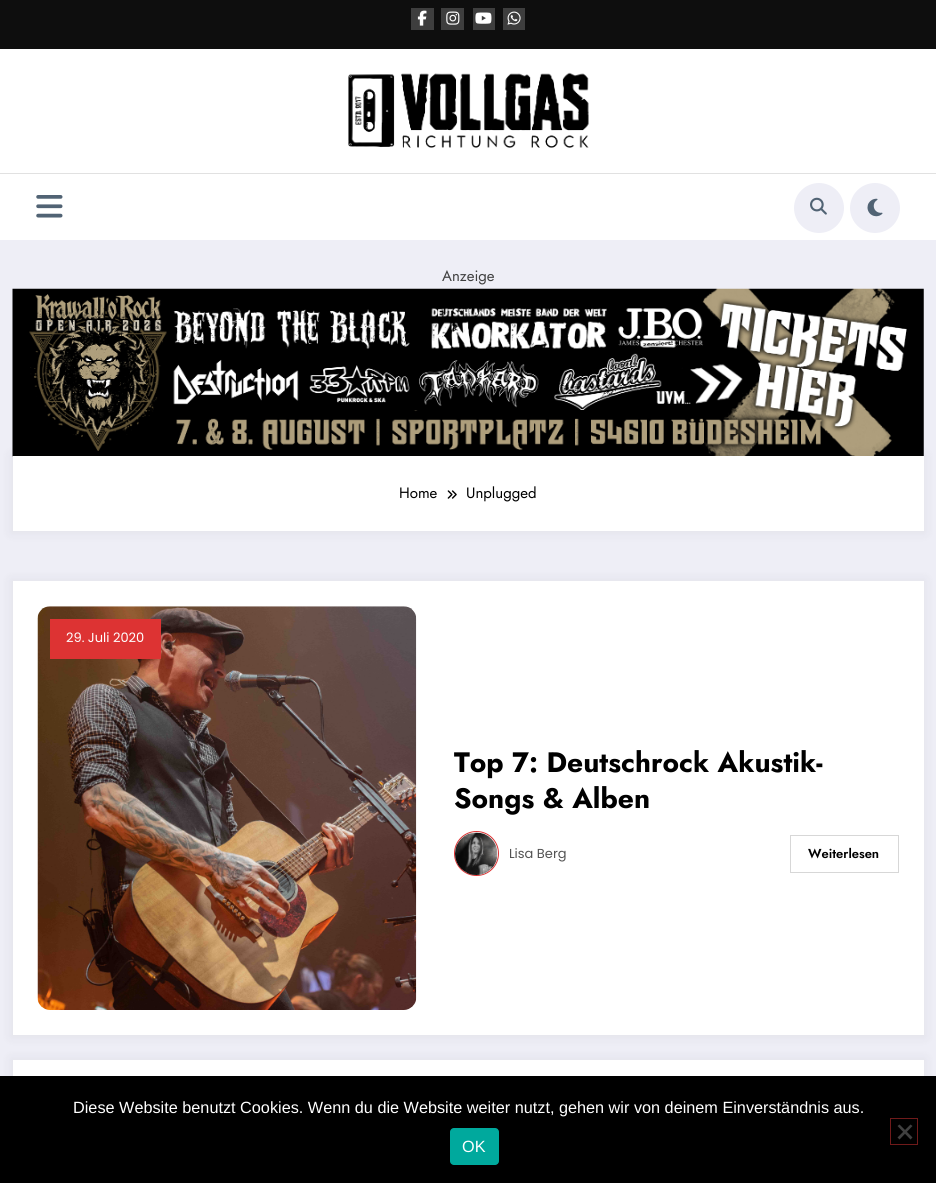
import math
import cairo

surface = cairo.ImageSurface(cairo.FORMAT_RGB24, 936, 1183)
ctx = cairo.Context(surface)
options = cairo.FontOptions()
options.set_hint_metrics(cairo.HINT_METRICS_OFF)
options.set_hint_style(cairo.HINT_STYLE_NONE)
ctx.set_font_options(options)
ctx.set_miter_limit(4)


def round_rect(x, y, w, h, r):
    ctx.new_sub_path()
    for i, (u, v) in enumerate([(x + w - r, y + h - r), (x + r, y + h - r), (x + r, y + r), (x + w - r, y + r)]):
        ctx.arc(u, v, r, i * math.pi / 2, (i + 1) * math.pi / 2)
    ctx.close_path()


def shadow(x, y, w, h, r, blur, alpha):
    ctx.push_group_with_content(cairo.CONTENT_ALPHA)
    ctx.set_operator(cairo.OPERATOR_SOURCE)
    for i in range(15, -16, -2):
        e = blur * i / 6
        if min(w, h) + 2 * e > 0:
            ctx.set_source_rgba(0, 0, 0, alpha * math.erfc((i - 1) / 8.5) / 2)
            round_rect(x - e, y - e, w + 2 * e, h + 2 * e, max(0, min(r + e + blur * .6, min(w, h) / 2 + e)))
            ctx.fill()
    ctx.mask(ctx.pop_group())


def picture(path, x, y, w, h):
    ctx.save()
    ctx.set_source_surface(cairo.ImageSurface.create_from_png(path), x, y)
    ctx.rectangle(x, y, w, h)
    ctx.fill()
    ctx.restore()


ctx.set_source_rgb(0.933, 0.933, 0.961)
ctx.paint()
ctx.set_source_rgb(0.055, 0.055, 0.055)
ctx.rectangle(0, 0, 936, 49)
ctx.fill()
ctx.set_source_rgb(0.243, 0.243, 0.243)
ctx.rectangle(411, 8, 23, 22)
ctx.fill()
picture("img1.png", 417, 10, 10, 16)
ctx.rectangle(441, 8, 23, 22)
ctx.fill()
picture("img2.png", 446, 11, 14, 14)
ctx.rectangle(473, 8, 22, 22)
ctx.fill()
picture("img3.png", 475, 12, 17, 12)
ctx.rectangle(503, 8, 22, 22)
ctx.fill()
picture("img4.png", 507, 11, 14, 14)
ctx.set_source_rgb(1, 1, 1)
ctx.rectangle(0, 49, 936, 191)
ctx.fill()
picture("img5.png", 348, 72, 241, 76)
ctx.set_source_rgb(0.882, 0.882, 0.882)
ctx.rectangle(0, 173, 936, 1)
ctx.fill()
picture("img6.png", 36, 195, 27, 23)
ctx.set_source_rgb(0.933, 0.933, 0.961)
ctx.arc(819, 208, 25, 0, 2 * math.pi)
ctx.fill()
picture("img7.png", 810, 197, 17, 18)
ctx.arc(875, 208, 25, 0, 2 * math.pi)
ctx.fill()
picture("img8.png", 867, 198, 16, 19)
ctx.select_font_face("Jost")
ctx.set_font_size(15)
ctx.set_source_rgb(0.251, 0.251, 0.251)
ctx.move_to(442, 281)
ctx.show_text("Anzeige")
picture("img9.png", 12, 288, 912, 169)
ctx.set_source_rgb(0.09, 0.09, 0.137)
shadow(10, 454, 916, 80, 0, 5, 0.05)
ctx.set_source_rgb(1, 1, 1)
ctx.rectangle(13, 456, 911, 75)
ctx.fill()
ctx.set_source_rgb(0, 0, 0)
ctx.move_to(399, 498)
ctx.show_text("Home")
picture("img10.png", 447, 490, 10, 9)
ctx.move_to(466, 498)
ctx.show_text("Unplugged")
ctx.set_source_rgb(0.09, 0.09, 0.137)
shadow(10, 579, 916, 459, 0, 5, 0.05)
ctx.set_source_rgb(1, 1, 1)
ctx.rectangle(13, 581, 911, 454)
ctx.fill()
picture("img11.png", 37, 606, 380, 404)
ctx.set_source_rgb(0.867, 0.2, 0.2)
ctx.rectangle(50, 619, 111, 40)
ctx.fill()
ctx.select_font_face("Poppins")
ctx.set_font_size(13)
ctx.set_source_rgb(1, 1, 1)
ctx.move_to(66, 642)
ctx.show_text("29. Juli 2020")
ctx.select_font_face("Jost", cairo.FONT_SLANT_NORMAL, cairo.FONT_WEIGHT_BOLD)
ctx.set_font_size(28.1)
ctx.set_source_rgb(0, 0, 0)
ctx.move_to(454, 772)
ctx.show_text("Top 7: Deutschrock Akustik-")
ctx.move_to(454, 808)
ctx.show_text("Songs & Alben")
ctx.new_path()
ctx.arc(476.5, 853.5, 22, 0, 2 * math.pi)
ctx.set_source_rgb(0.867, 0.2, 0.2)
ctx.set_line_width(1)
ctx.stroke()
picture("img12.png", 455, 832, 43, 43)
ctx.select_font_face("Poppins")
ctx.set_font_size(13)
ctx.set_source_rgb(0.322, 0.322, 0.322)
ctx.move_to(509, 858)
ctx.show_text("Lisa Berg")
ctx.rectangle(790.5, 835.5, 108, 37)
ctx.set_source_rgb(0.843, 0.843, 0.843)
ctx.stroke()
ctx.select_font_face("Jost SemiBold")
ctx.set_source_rgb(0, 0, 0)
ctx.move_to(808, 858)
ctx.show_text("Weiterlesen")
ctx.set_source_rgb(0.09, 0.09, 0.137)
shadow(10, 1058, 916, 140, 0, 5, 0.05)
ctx.set_source_rgb(1, 1, 1)
ctx.rectangle(13, 1060, 911, 16)
ctx.fill()
ctx.set_source_rgb(0, 0, 0)
ctx.rectangle(0, 1076, 936, 107)
ctx.fill()
ctx.select_font_face("Liberation Sans")
ctx.set_font_size(16.25)
ctx.set_source_rgb(1, 1, 1)
ctx.move_to(73, 1113)
ctx.show_text("Diese Website benutzt Cookies. Wenn du die Website weiter nutzt, gehen wir von deinem Einverständnis aus.")
ctx.rectangle(890.5, 1118.5, 27, 26)
ctx.set_source_rgb(0.435, 0.102, 0.102)
ctx.stroke()
ctx.set_source_rgb(0.251, 0.251, 0.251)
ctx.new_path()
ctx.move_to(910.5, 1124.5)
ctx.line_to(912.5, 1126)
ctx.line_to(899.5, 1139.5)
ctx.line_to(897.5, 1137.5)
ctx.close_path()
ctx.fill()
ctx.new_path()
ctx.move_to(897.5, 1126)
ctx.line_to(899.5, 1124.5)
ctx.line_to(912.5, 1137.5)
ctx.line_to(910.5, 1139.5)
ctx.close_path()
ctx.fill()
ctx.set_source_rgb(0, 0.663, 0.616)
round_rect(450, 1128, 49, 37, 4)
ctx.fill()
ctx.set_source_rgb(1, 1, 1)
ctx.move_to(462, 1152)
ctx.show_text("OK")
surface.write_to_png("page.png")
